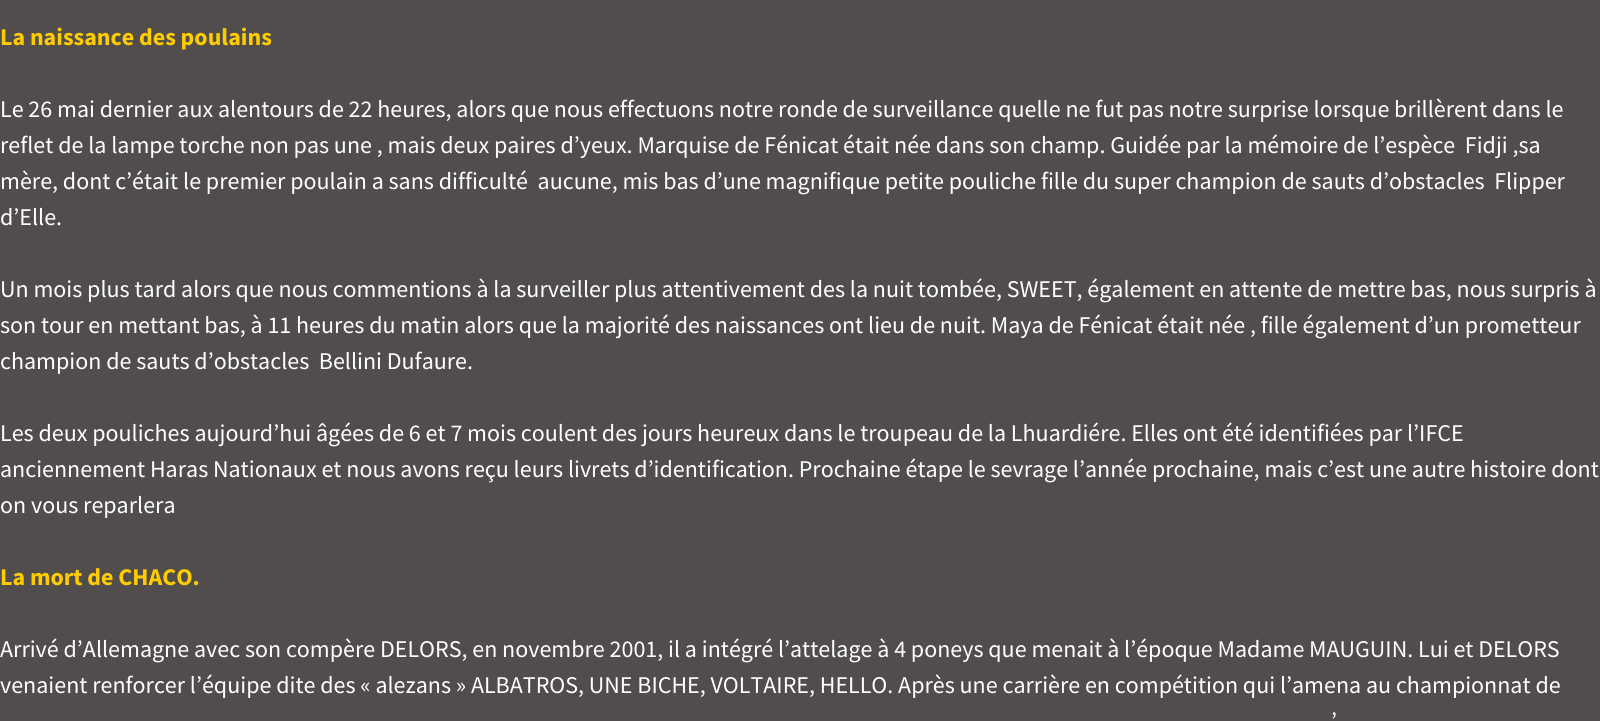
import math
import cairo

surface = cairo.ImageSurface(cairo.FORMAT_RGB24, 1600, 721)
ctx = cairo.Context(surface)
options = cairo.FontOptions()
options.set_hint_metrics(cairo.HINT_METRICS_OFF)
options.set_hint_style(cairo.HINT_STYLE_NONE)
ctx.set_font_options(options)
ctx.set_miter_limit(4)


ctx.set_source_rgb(0.318, 0.302, 0.302)
ctx.paint()
ctx.select_font_face("Source Sans Pro", cairo.FONT_SLANT_NORMAL, cairo.FONT_WEIGHT_BOLD)
ctx.set_font_size(24)
ctx.set_source_rgb(1, 0.8, 0)
ctx.move_to(0, 45)
ctx.show_text("La naissance des poulains")
ctx.select_font_face("Source Sans Pro")
ctx.set_source_rgb(1, 1, 1)
ctx.move_to(0, 117)
ctx.show_text("Le 26 mai dernier aux alentours de 22 heures, alors que nous effectuons notre ronde de surveillance quelle ne fut pas notre surprise lorsque brillèrent dans le")
ctx.move_to(0, 153)
ctx.show_text("reflet de la lampe torche non pas une , mais deux paires d’yeux. Marquise de Fénicat était née dans son champ. Guidée par la mémoire de l’espèce  Fidji ,sa")
ctx.move_to(0, 189)
ctx.show_text("mère, dont c’était le premier poulain a sans difficulté  aucune, mis bas d’une magnifique petite pouliche fille du super champion de sauts d’obstacles  Flipper")
ctx.move_to(0, 225)
ctx.show_text("d’Elle.")
ctx.move_to(0, 297)
ctx.show_text("Un mois plus tard alors que nous commentions à la surveiller plus attentivement des la nuit tombée, SWEET, également en attente de mettre bas, nous surpris à")
ctx.move_to(0, 333)
ctx.show_text("son tour en mettant bas, à 11 heures du matin alors que la majorité des naissances ont lieu de nuit. Maya de Fénicat était née , fille également d’un prometteur")
ctx.move_to(0, 369)
ctx.show_text("champion de sauts d’obstacles  Bellini Dufaure.")
ctx.move_to(0, 441)
ctx.show_text("Les deux pouliches aujourd’hui âgées de 6 et 7 mois coulent des jours heureux dans le troupeau de la Lhuardiére. Elles ont été identifiées par l’IFCE")
ctx.move_to(0, 477)
ctx.show_text("anciennement Haras Nationaux et nous avons reçu leurs livrets d’identification. Prochaine étape le sevrage l’année prochaine, mais c’est une autre histoire dont")
ctx.move_to(0, 513)
ctx.show_text("on vous reparlera")
ctx.select_font_face("Source Sans Pro", cairo.FONT_SLANT_NORMAL, cairo.FONT_WEIGHT_BOLD)
ctx.set_source_rgb(1, 0.8, 0)
ctx.move_to(0, 585)
ctx.show_text("La mort de CHACO.")
ctx.select_font_face("Source Sans Pro")
ctx.set_source_rgb(1, 1, 1)
ctx.move_to(0, 657)
ctx.show_text("Arrivé d’Allemagne avec son compère DELORS, en novembre 2001, il a intégré l’attelage à 4 poneys que menait à l’époque Madame MAUGUIN. Lui et DELORS")
ctx.move_to(0, 693)
ctx.show_text("venaient renforcer l’équipe dite des « alezans » ALBATROS, UNE BICHE, VOLTAIRE, HELLO. Après une carrière en compétition qui l’amena au championnat de")
ctx.move_to(1331, 729)
ctx.show_text("’")
surface.write_to_png("page.png")
